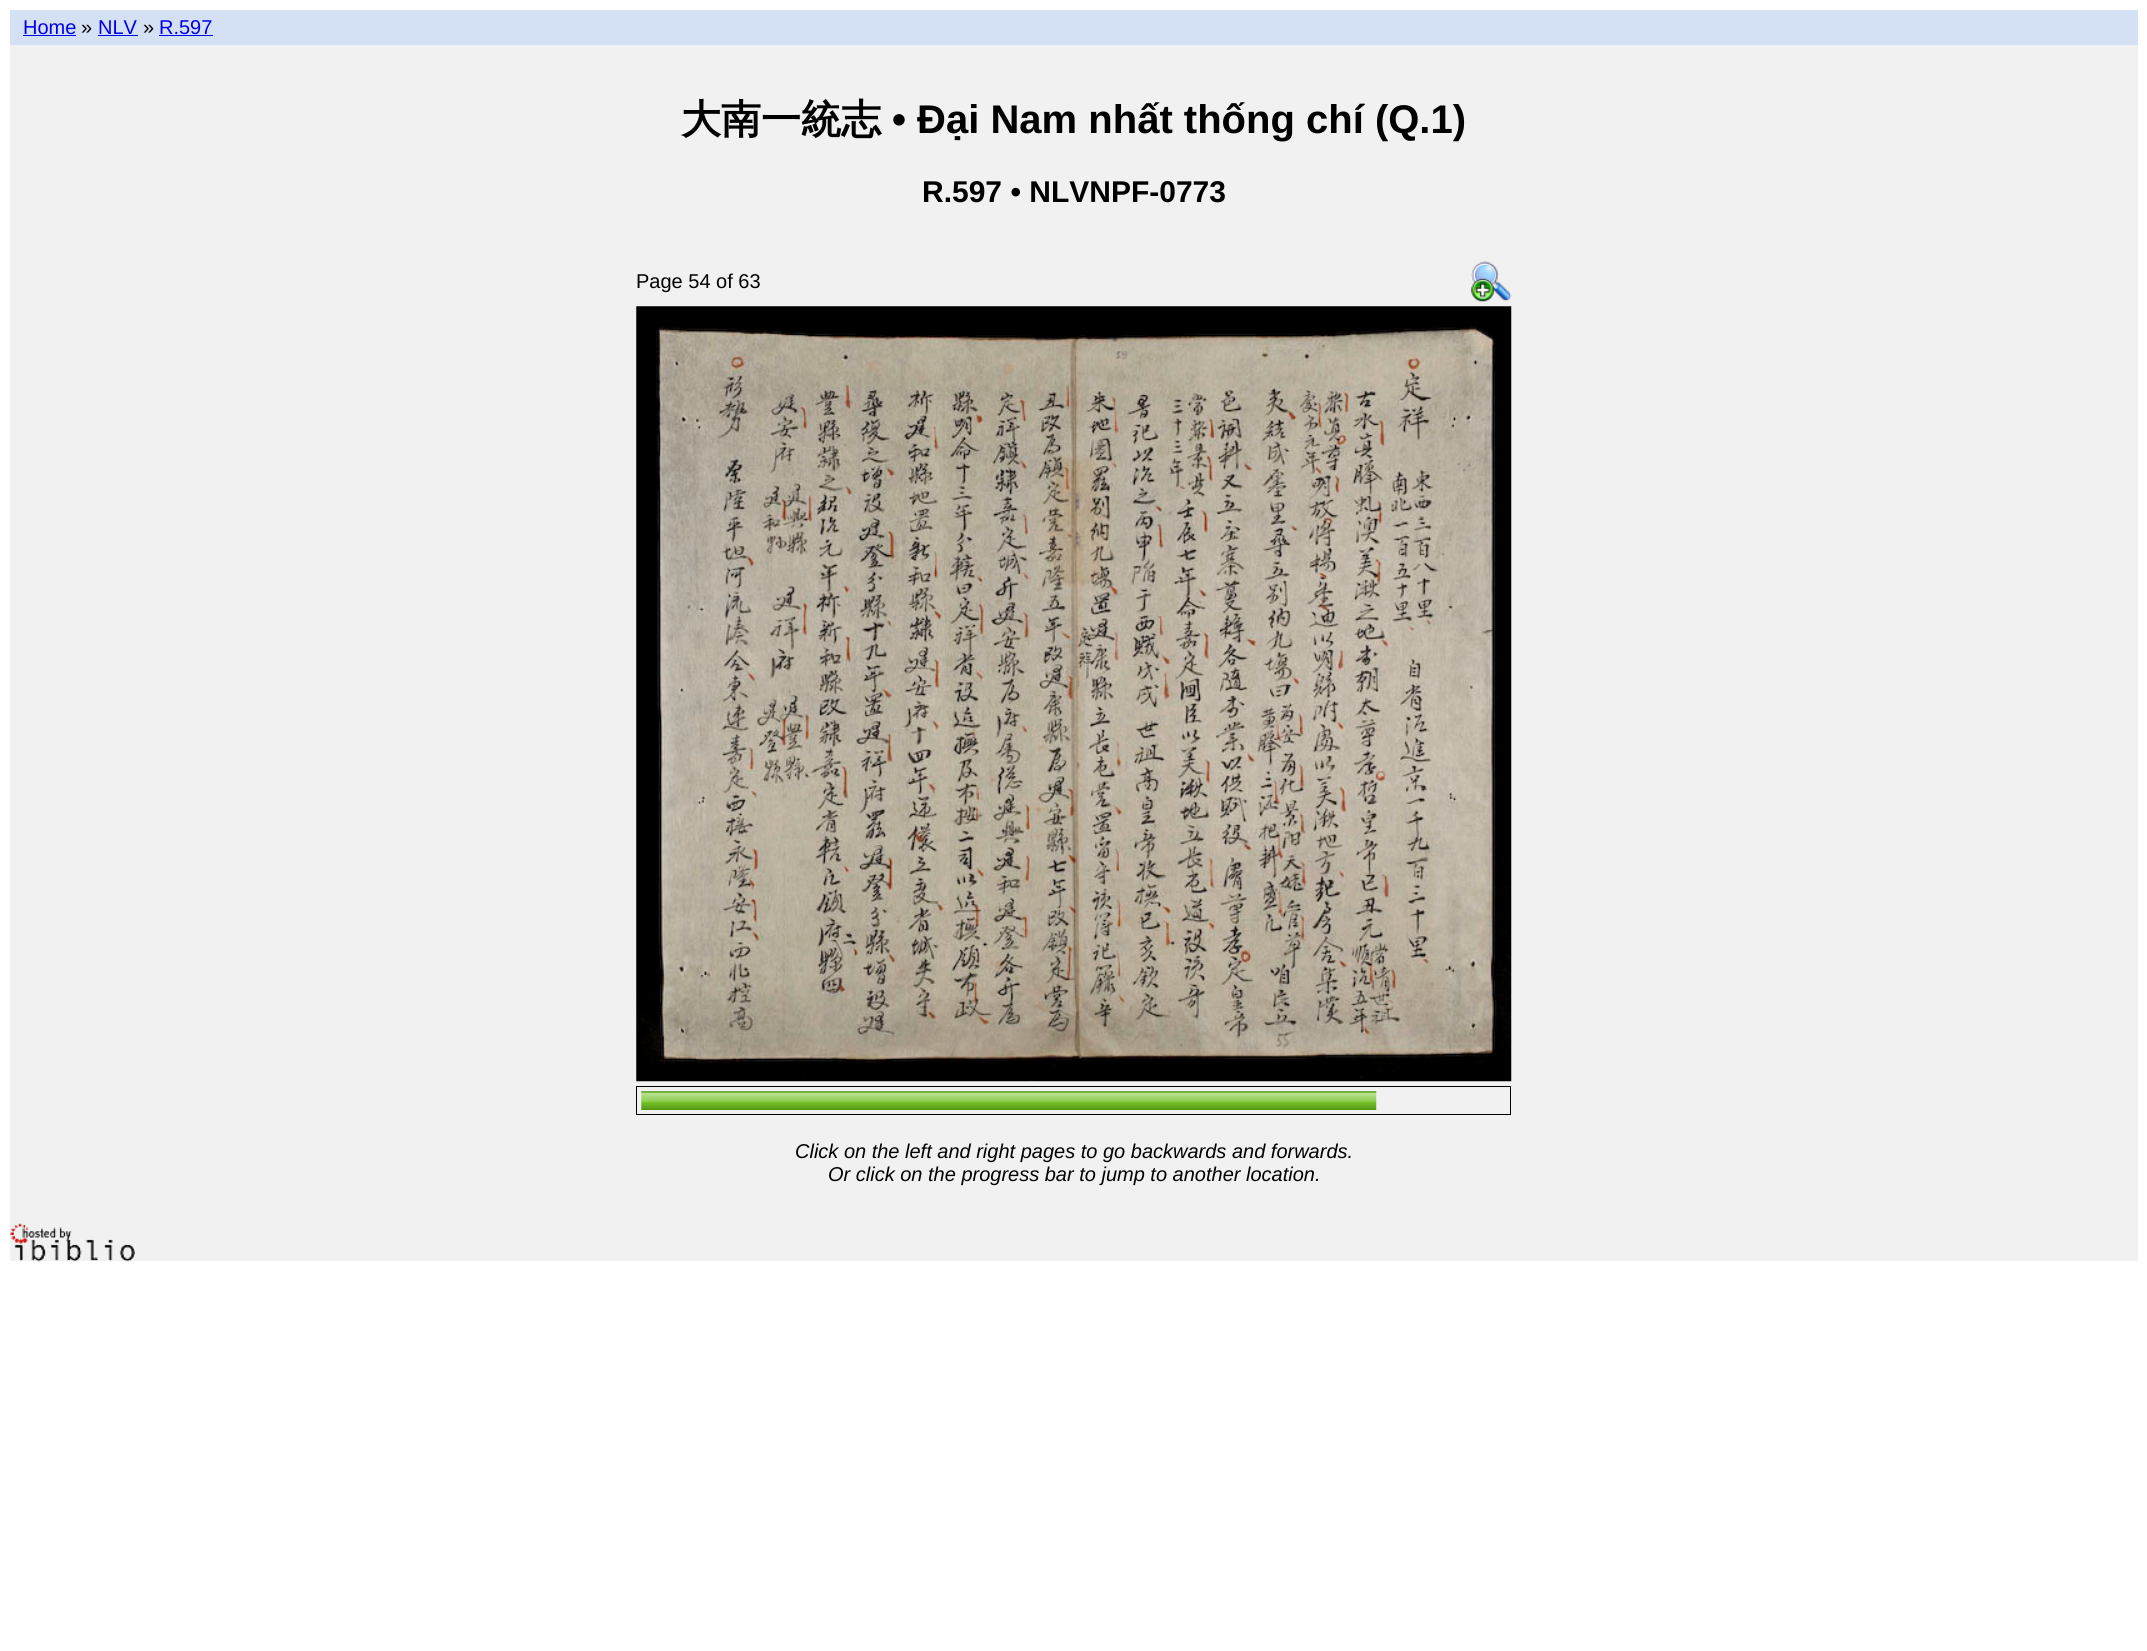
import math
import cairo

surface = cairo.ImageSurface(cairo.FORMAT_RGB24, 2147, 1651)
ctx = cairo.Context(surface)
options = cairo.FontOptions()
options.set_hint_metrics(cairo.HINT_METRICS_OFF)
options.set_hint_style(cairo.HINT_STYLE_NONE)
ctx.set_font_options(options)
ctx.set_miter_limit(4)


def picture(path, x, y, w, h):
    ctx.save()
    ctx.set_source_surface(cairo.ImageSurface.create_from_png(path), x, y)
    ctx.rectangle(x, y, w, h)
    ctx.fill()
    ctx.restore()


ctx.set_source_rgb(1, 1, 1)
ctx.paint()
ctx.set_source_rgb(0.945, 0.945, 0.945)
ctx.rectangle(10, 45, 2128, 1216)
ctx.fill()
ctx.set_source_rgb(0.831, 0.878, 0.953)
ctx.rectangle(10, 10, 2128, 35)
ctx.fill()
ctx.select_font_face("Liberation Sans")
ctx.set_font_size(20)
ctx.set_source_rgb(0, 0, 0.933)
ctx.move_to(23, 34)
ctx.show_text("Home")
ctx.rectangle(23, 35, 53, 1)
ctx.fill()
ctx.set_source_rgb(0, 0, 0)
ctx.move_to(81, 34)
ctx.show_text("»")
ctx.set_source_rgb(0, 0, 0.933)
ctx.move_to(98, 34)
ctx.show_text("NLV")
ctx.rectangle(98, 35, 40, 1)
ctx.fill()
ctx.set_source_rgb(0, 0, 0)
ctx.move_to(143, 34)
ctx.show_text("»")
ctx.set_source_rgb(0, 0, 0.933)
ctx.move_to(159, 34)
ctx.show_text("R.597")
ctx.rectangle(159, 35, 54, 1)
ctx.fill()
ctx.select_font_face("WenQuanYi Zen Hei", cairo.FONT_SLANT_NORMAL, cairo.FONT_WEIGHT_BOLD)
ctx.set_font_size(40)
ctx.set_source_rgb(0, 0, 0)
ctx.move_to(681, 133)
ctx.show_text("大南一統志")
ctx.select_font_face("Liberation Sans", cairo.FONT_SLANT_NORMAL, cairo.FONT_WEIGHT_BOLD)
ctx.move_to(892, 133)
ctx.show_text("• Đại Nam nhất thống chí (Q.1)")
ctx.set_font_size(30)
ctx.move_to(922, 202)
ctx.show_text("R.597 • NLVNPF-0773")
ctx.select_font_face("Liberation Sans")
ctx.set_font_size(20)
ctx.move_to(636, 288)
ctx.show_text("Page 54 of 63")
picture("img1.png", 1471, 261, 41, 41)
picture("img2.png", 636, 306, 876, 776)
ctx.rectangle(636.5, 1086.5, 874, 28)
ctx.set_line_width(1)
ctx.stroke()
picture("img3.png", 641, 1091, 736, 19)
ctx.select_font_face("Liberation Sans", cairo.FONT_SLANT_ITALIC)
ctx.move_to(795, 1158)
ctx.show_text("Click on the left and right pages to go backwards and forwards.")
ctx.move_to(828, 1181)
ctx.show_text("Or click on the progress bar to jump to another location.")
picture("img4.png", 10, 1223, 125, 39)
surface.write_to_png("page.png")
